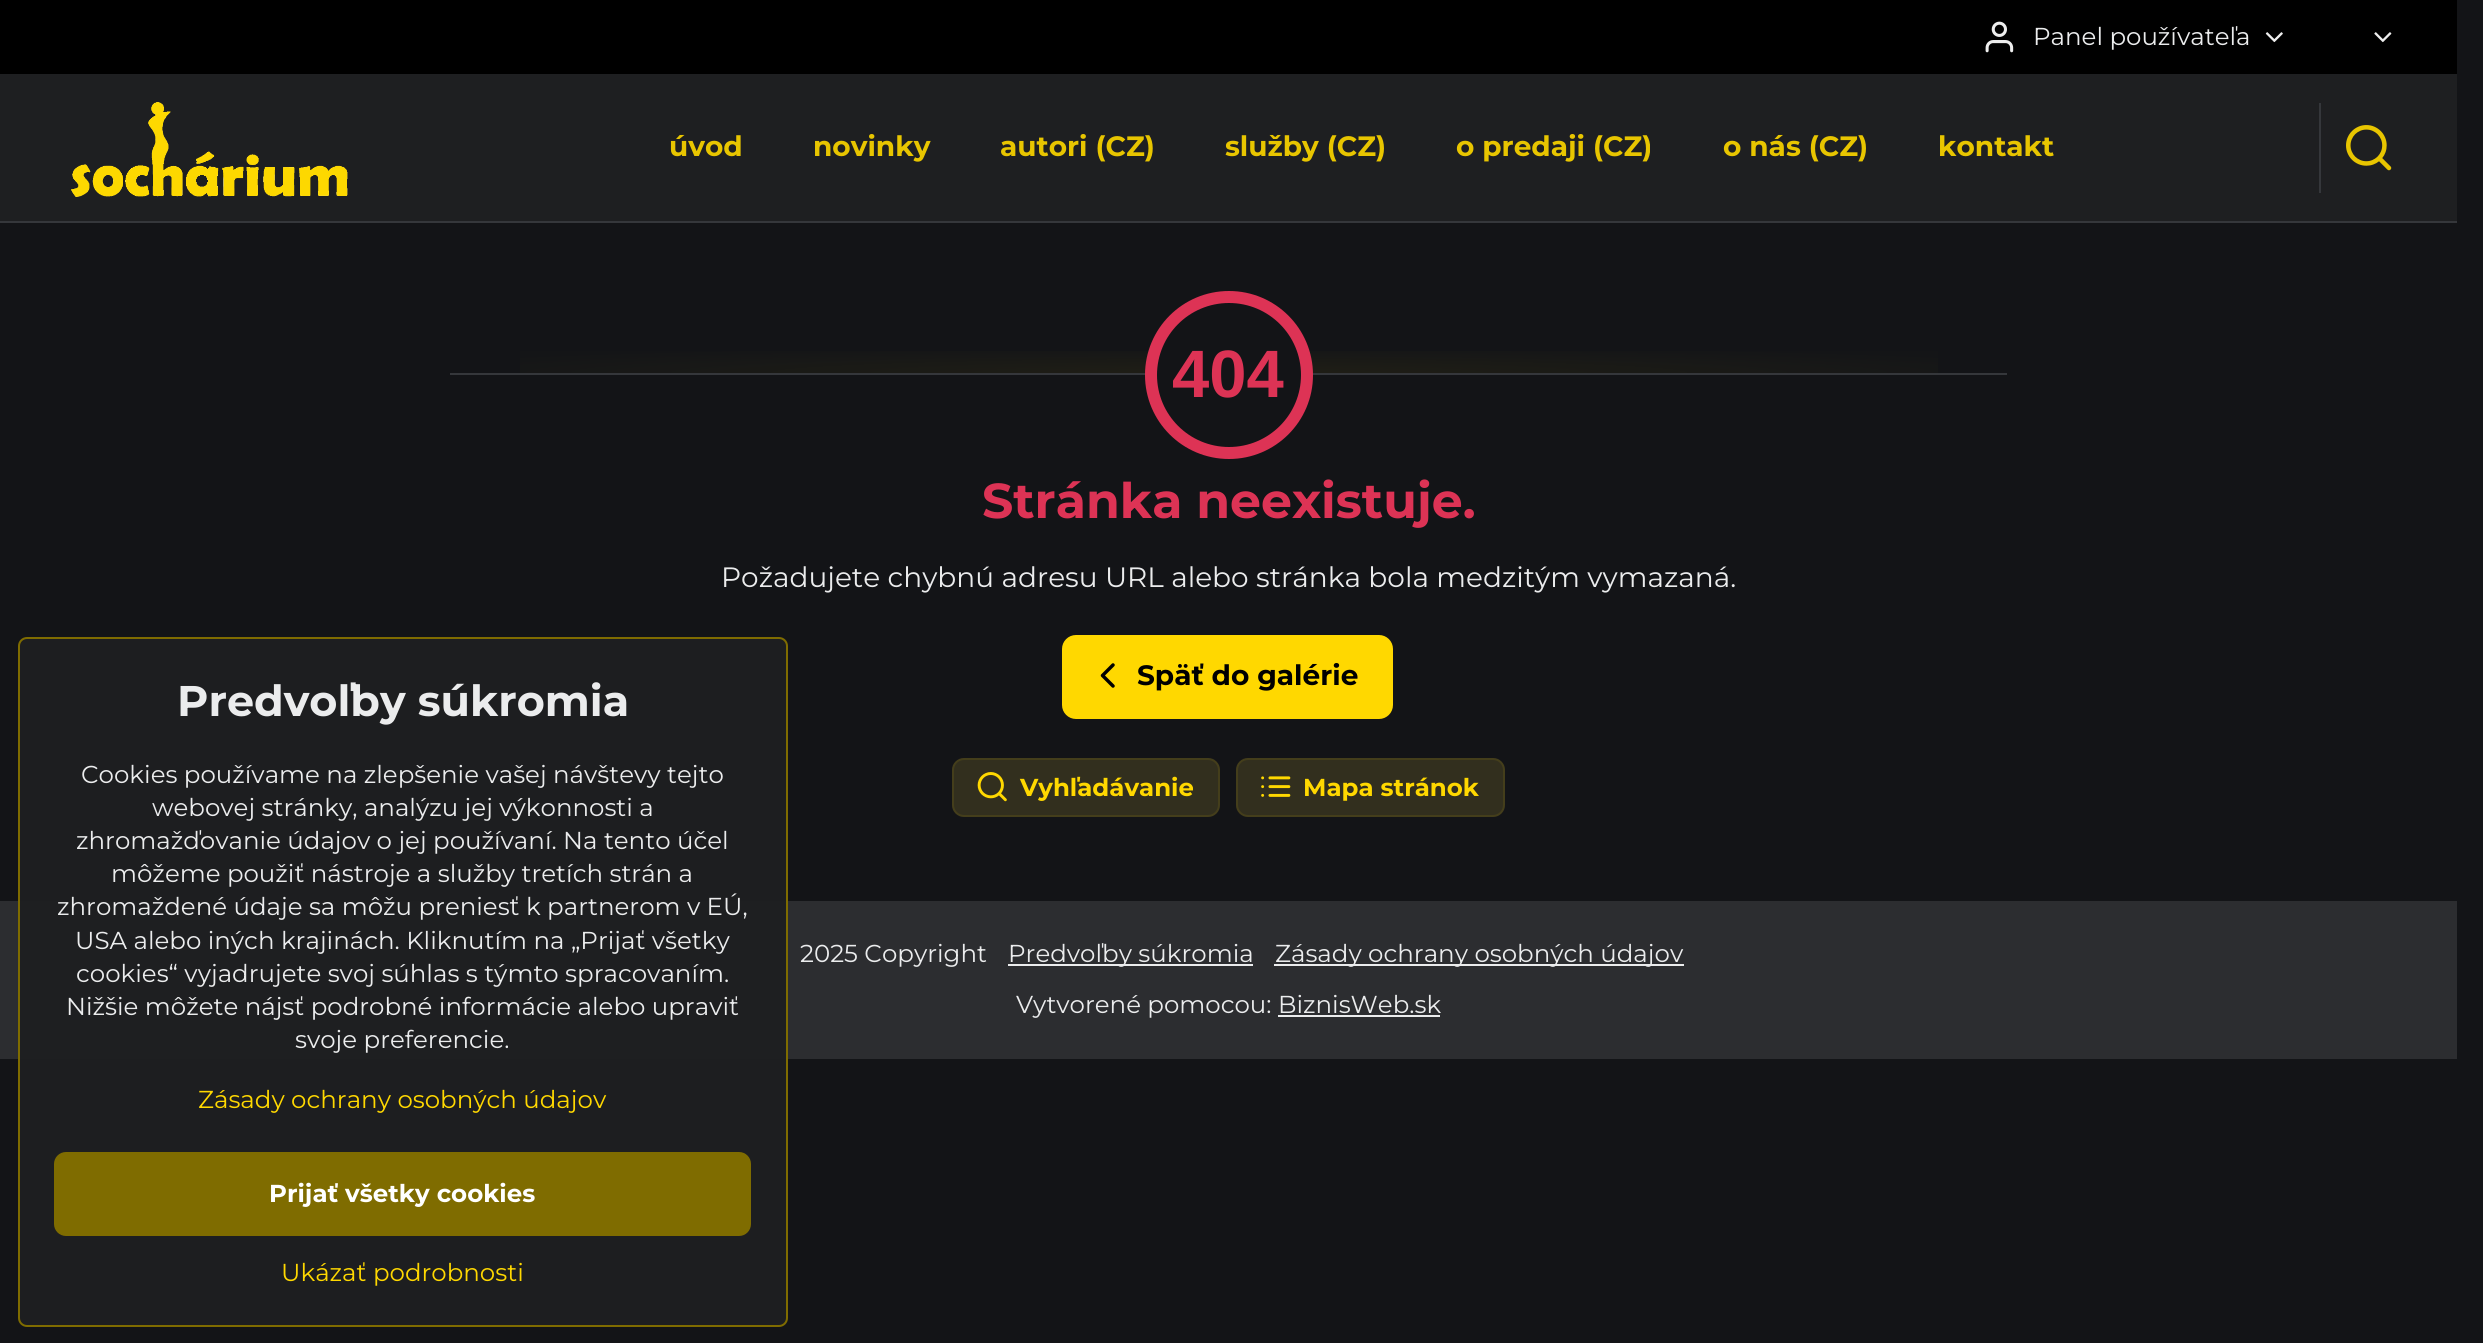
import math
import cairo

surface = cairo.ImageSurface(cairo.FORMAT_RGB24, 2483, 1343)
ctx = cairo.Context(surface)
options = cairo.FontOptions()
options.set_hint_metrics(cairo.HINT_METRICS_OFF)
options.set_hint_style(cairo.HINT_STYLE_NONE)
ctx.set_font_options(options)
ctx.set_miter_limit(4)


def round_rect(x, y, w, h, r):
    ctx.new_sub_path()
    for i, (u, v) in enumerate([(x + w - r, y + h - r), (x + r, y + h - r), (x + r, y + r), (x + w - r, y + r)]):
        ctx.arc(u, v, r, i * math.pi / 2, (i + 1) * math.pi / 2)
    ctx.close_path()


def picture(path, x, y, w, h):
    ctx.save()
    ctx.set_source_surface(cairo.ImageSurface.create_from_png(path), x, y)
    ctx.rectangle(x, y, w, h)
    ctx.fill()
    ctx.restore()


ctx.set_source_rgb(0.078, 0.082, 0.09)
ctx.paint()
ctx.set_source_rgb(0.173, 0.176, 0.188)
ctx.rectangle(0, 901, 2457, 158)
ctx.fill()
ctx.set_source_rgba(0.118, 0.122, 0.129, 0.95)
round_rect(19, 638, 768, 688, 8)
ctx.fill_preserve()
ctx.set_source_rgb(0.498, 0.424, 0)
ctx.stroke()
ctx.select_font_face("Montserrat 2 Thin")
ctx.set_font_size(42.9)
ctx.set_source_rgb(0.918, 0.922, 0.929)
ctx.move_to(177, 716)
ctx.show_text("Predvoľby súkromia")
ctx.select_font_face("Montserrat Thin")
ctx.set_font_size(24.5)
ctx.move_to(81, 783)
ctx.show_text("Cookies používame na zlepšenie vašej návštevy tejto")
ctx.move_to(152, 816)
ctx.show_text("webovej stránky, analýzu jej výkonnosti a")
ctx.move_to(76, 849)
ctx.show_text("zhromažďovanie údajov o jej používaní. Na tento účel")
ctx.move_to(111, 882)
ctx.show_text("môžeme použiť nástroje a služby tretích strán a")
ctx.move_to(57, 915)
ctx.show_text("zhromaždené údaje sa môžu preniesť k partnerom v EÚ,")
ctx.move_to(75, 949)
ctx.show_text("USA alebo iných krajinách. Kliknutím na „Prijať všetky")
ctx.move_to(76, 982)
ctx.show_text("cookies“ vyjadrujete svoj súhlas s týmto spracovaním.")
ctx.move_to(66, 1015)
ctx.show_text("Nižšie môžete nájsť podrobné informácie alebo upraviť")
ctx.move_to(295, 1048)
ctx.show_text("svoje preferencie.")
ctx.set_source_rgb(1, 0.847, 0)
ctx.move_to(198, 1108)
ctx.show_text("Zásady ochrany osobných údajov")
ctx.set_source_rgb(0.498, 0.424, 0)
round_rect(54, 1152, 697, 84, 12)
ctx.fill()
ctx.select_font_face("Montserrat 2 Thin")
ctx.set_source_rgb(1, 1, 1)
ctx.move_to(269, 1202)
ctx.show_text("Prijať všetky cookies")
ctx.select_font_face("Montserrat Thin")
ctx.set_source_rgb(1, 0.847, 0)
ctx.move_to(281, 1281)
ctx.show_text("Ukázať podrobnosti")
ctx.set_source_rgb(0, 0, 0)
ctx.rectangle(0, 0, 2457, 74)
ctx.fill()
picture("img1.png", 1985, 21, 29, 32)
ctx.set_source_rgb(0.918, 0.922, 0.929)
ctx.move_to(2033, 45)
ctx.show_text("Panel používateľa")
picture("img2.png", 2265, 32, 18, 11)
picture("img3.png", 2374, 32, 18, 11)
ctx.set_source_rgb(0.118, 0.122, 0.129)
ctx.rectangle(0, 74, 2457, 147)
ctx.fill()
ctx.set_source_rgb(0.208, 0.216, 0.231)
ctx.rectangle(0, 221, 2457, 2)
ctx.fill()
picture("img4.png", 71, 102, 277, 95)
ctx.rectangle(2319, 103, 2, 90)
ctx.fill()
picture("img5.png", 2346, 125, 46, 46)
ctx.select_font_face("Montserrat 2 Thin")
ctx.set_font_size(28)
ctx.set_source_rgb(0.91, 0.773, 0)
ctx.move_to(669, 156)
ctx.show_text("úvod")
ctx.move_to(813, 156)
ctx.show_text("novinky")
ctx.move_to(1000, 156)
ctx.show_text("autori (CZ)")
ctx.move_to(1225, 156)
ctx.show_text("služby (CZ)")
ctx.move_to(1456, 156)
ctx.show_text("o predaji (CZ)")
ctx.move_to(1723, 156)
ctx.show_text("o nás (CZ)")
ctx.move_to(1938, 156)
ctx.show_text("kontakt")
ctx.set_source_rgb(0.208, 0.216, 0.231)
ctx.rectangle(450, 373, 1557, 2)
ctx.fill()
gradient = cairo.RadialGradient(0, 0, 0, 0, 0, 1)
gradient.set_matrix(cairo.Matrix(1 / 1322, 0, 0, 1 / 40, -1 * 1229 / 1322, -1 * 373 / 40))
gradient.add_color_stop_rgba(0, 0.122, 0.118, 0.086, 1)
gradient.add_color_stop_rgba(0.7, 0.078, 0.082, 0.09, 1)
ctx.set_source(gradient)
ctx.rectangle(520, 351, 1418, 22)
ctx.fill()
ctx.set_source_rgb(0.078, 0.082, 0.09)
ctx.arc(1229, 375, 78, 0, 2 * math.pi)
ctx.fill_preserve()
ctx.set_source_rgb(0.867, 0.2, 0.333)
ctx.set_line_width(12)
ctx.stroke()
ctx.select_font_face("Liberation Sans", cairo.FONT_SLANT_NORMAL, cairo.FONT_WEIGHT_BOLD)
ctx.set_font_size(67)
ctx.move_to(1172, 397)
ctx.show_text("404")
ctx.select_font_face("Montserrat 2 Thin")
ctx.set_font_size(49)
ctx.move_to(982, 518)
ctx.show_text("Stránka neexistuje.")
ctx.select_font_face("Montserrat Thin")
ctx.set_font_size(28)
ctx.set_source_rgb(0.918, 0.922, 0.929)
ctx.move_to(721, 587)
ctx.show_text("Požadujete chybnú adresu URL alebo stránka bola medzitým vymazaná.")
ctx.set_source_rgb(1, 0.847, 0)
round_rect(1062, 635, 331, 84, 14)
ctx.fill()
picture("img6.png", 1100, 663, 15, 25)
ctx.select_font_face("Montserrat 2 Thin")
ctx.set_source_rgb(0, 0, 0)
ctx.move_to(1137, 685)
ctx.show_text("Späť do galérie")
ctx.set_source_rgb(0.118, 0.122, 0.129)
round_rect(952, 758, 268, 59, 12)
ctx.fill()
ctx.set_source_rgba(1, 0.847, 0, 0.09)
round_rect(952, 758, 268, 59, 12)
ctx.fill()
round_rect(953, 759, 266, 57, 11)
ctx.set_line_width(2)
ctx.stroke()
picture("img7.png", 977, 772, 30, 30)
ctx.set_font_size(24.5)
ctx.set_source_rgb(1, 0.847, 0)
ctx.move_to(1020, 796)
ctx.show_text("Vyhľadávanie")
ctx.set_source_rgb(0.118, 0.122, 0.129)
round_rect(1236, 758, 269, 59, 12)
ctx.fill()
ctx.set_source_rgba(1, 0.847, 0, 0.09)
round_rect(1236, 758, 269, 59, 12)
ctx.fill()
round_rect(1237, 759, 267, 57, 11)
ctx.stroke()
picture("img8.png", 1261, 776, 30, 21)
ctx.set_source_rgb(1, 0.847, 0)
ctx.move_to(1303, 796)
ctx.show_text("Mapa stránok")
ctx.select_font_face("Montserrat Thin")
ctx.set_source_rgb(0.918, 0.922, 0.929)
ctx.move_to(800, 962)
ctx.show_text("2025 Copyright")
ctx.rectangle(1008, 964, 245, 2)
ctx.fill()
ctx.move_to(1008, 962)
ctx.show_text("Predvoľby súkromia")
ctx.rectangle(1274, 964, 410, 2)
ctx.fill()
ctx.move_to(1275, 962)
ctx.show_text("Zásady ochrany osobných údajov")
ctx.move_to(1016, 1013)
ctx.show_text("Vytvorené pomocou: BiznisWeb.sk")
ctx.rectangle(1278, 1015, 162, 2)
ctx.fill()
surface.write_to_png("page.png")
